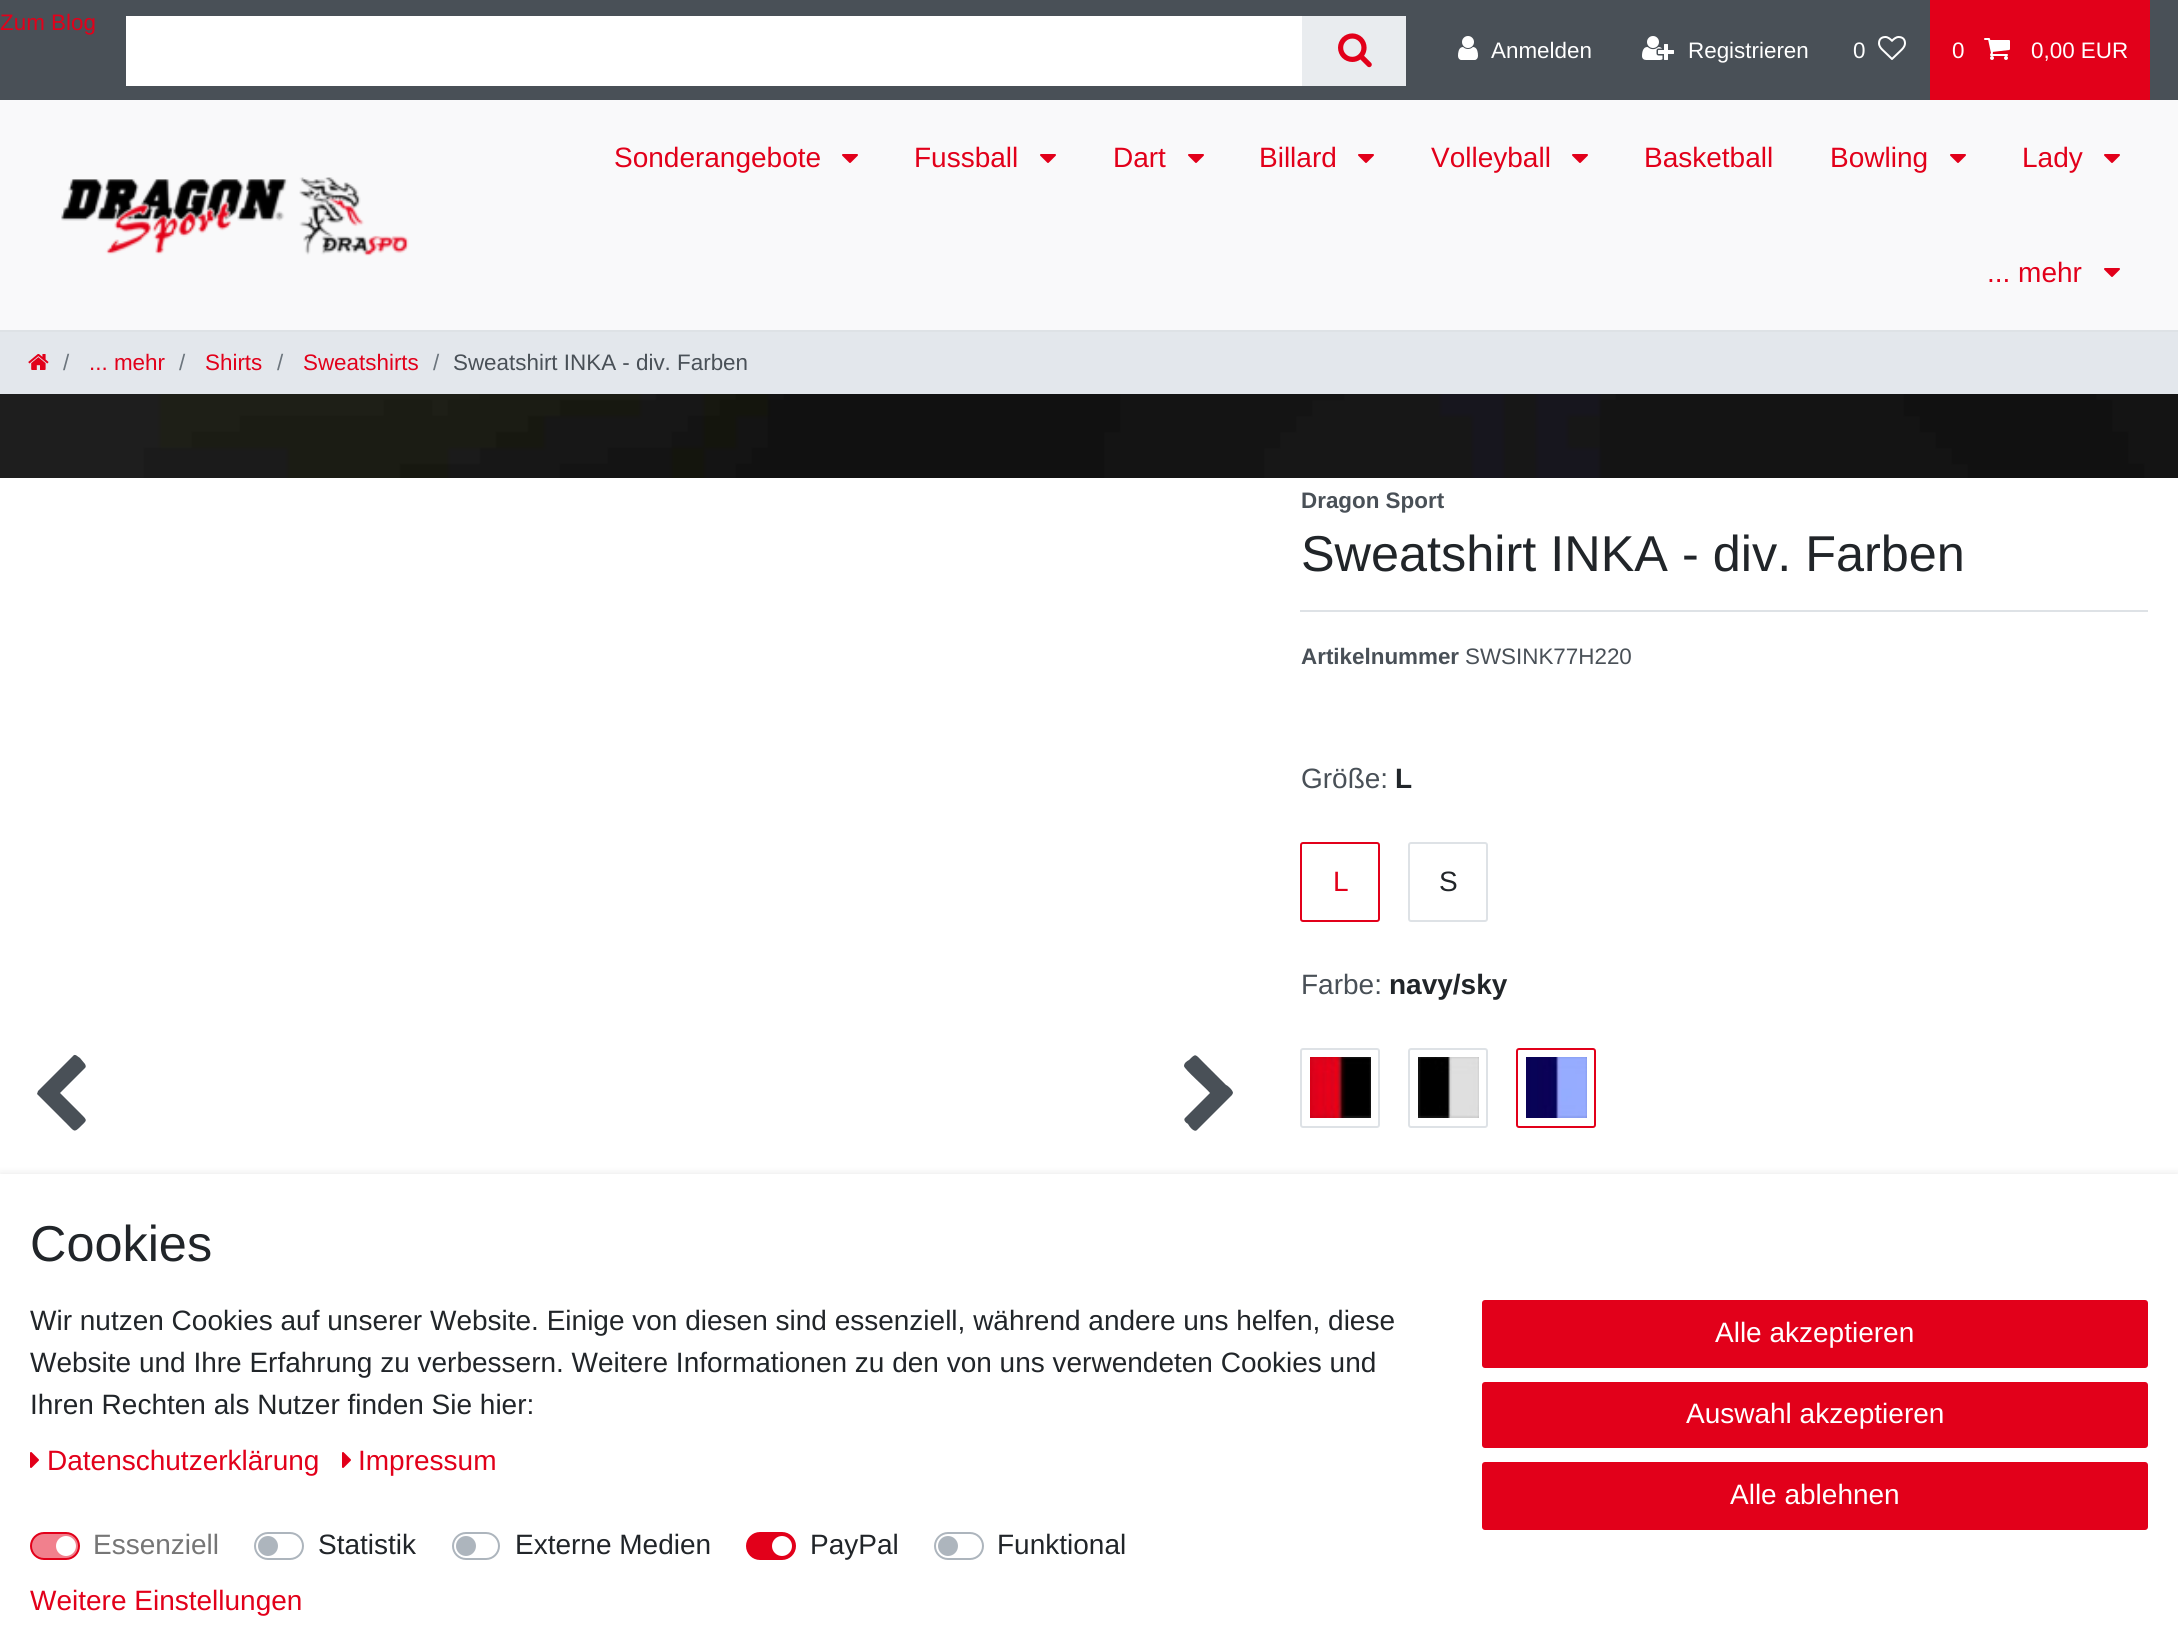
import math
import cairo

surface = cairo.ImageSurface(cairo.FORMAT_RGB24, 2178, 1650)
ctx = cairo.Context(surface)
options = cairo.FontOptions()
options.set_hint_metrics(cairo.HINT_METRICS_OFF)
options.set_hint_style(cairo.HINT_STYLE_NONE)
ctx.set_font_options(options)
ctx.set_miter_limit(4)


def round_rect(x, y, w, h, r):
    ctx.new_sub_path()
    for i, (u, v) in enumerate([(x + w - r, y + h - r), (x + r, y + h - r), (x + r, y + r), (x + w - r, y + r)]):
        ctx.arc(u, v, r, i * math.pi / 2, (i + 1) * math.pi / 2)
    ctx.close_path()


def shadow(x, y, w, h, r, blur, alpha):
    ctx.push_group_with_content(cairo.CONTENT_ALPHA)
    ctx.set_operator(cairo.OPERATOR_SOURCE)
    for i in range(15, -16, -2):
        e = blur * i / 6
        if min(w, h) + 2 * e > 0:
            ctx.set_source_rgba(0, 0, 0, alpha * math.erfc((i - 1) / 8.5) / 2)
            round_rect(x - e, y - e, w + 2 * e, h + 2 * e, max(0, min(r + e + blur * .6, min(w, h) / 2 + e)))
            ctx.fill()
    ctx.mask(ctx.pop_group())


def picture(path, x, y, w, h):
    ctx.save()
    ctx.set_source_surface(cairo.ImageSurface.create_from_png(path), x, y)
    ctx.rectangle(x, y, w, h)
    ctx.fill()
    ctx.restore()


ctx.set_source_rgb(1, 1, 1)
ctx.paint()
picture("img1.png", 0, 394, 2178, 84)
ctx.set_source_rgb(0.286, 0.314, 0.341)
ctx.rectangle(0, 0, 2178, 100)
ctx.fill()
ctx.select_font_face("Liberation Sans")
ctx.set_font_size(22.4)
ctx.set_source_rgb(0.886, 0, 0.102)
ctx.move_to(0, 30)
ctx.show_text("Zum Blog")
ctx.set_source_rgb(1, 1, 1)
ctx.rectangle(126, 16, 1176, 70)
ctx.fill()
ctx.set_source_rgb(0.914, 0.925, 0.937)
ctx.rectangle(1302, 16, 104, 70)
ctx.fill()
picture("img2.png", 1338, 33, 34, 35)
picture("img3.png", 1458, 36, 20, 24)
ctx.set_source_rgb(1, 1, 1)
ctx.move_to(1491, 58)
ctx.show_text("Anmelden")
picture("img4.png", 1642, 36, 32, 24)
ctx.move_to(1688, 58)
ctx.show_text("Registrieren")
ctx.move_to(1853, 58)
ctx.show_text("0")
picture("img5.png", 1878, 36, 28, 24)
ctx.set_source_rgb(0.886, 0, 0.102)
ctx.rectangle(1930, 0, 220, 100)
ctx.fill()
ctx.set_source_rgb(1, 1, 1)
ctx.move_to(1952, 58)
ctx.show_text("0")
picture("img6.png", 1984, 38, 26, 22)
ctx.move_to(2031, 58)
ctx.show_text("0,00 EUR")
ctx.set_source_rgb(0.973, 0.976, 0.98)
ctx.rectangle(0, 100, 2178, 230)
ctx.fill()
ctx.set_source_rgb(0.871, 0.886, 0.902)
ctx.rectangle(0, 330, 2178, 2)
ctx.fill()
picture("img7.png", 61, 177, 348, 79)
ctx.set_font_size(28)
ctx.set_source_rgb(0.886, 0, 0.102)
ctx.move_to(614, 167)
ctx.show_text("Sonderangebote")
picture("img8.png", 842, 154, 16, 9)
ctx.move_to(914, 167)
ctx.show_text("Fussball")
picture("img8.png", 1040, 154, 16, 9)
ctx.move_to(1113, 167)
ctx.show_text("Dart")
picture("img8.png", 1188, 154, 16, 9)
ctx.move_to(1259, 167)
ctx.show_text("Billard")
picture("img8.png", 1358, 154, 16, 9)
ctx.move_to(1431, 167)
ctx.show_text("Volleyball")
picture("img8.png", 1572, 154, 16, 9)
ctx.move_to(1644, 167)
ctx.show_text("Basketball")
ctx.move_to(1830, 167)
ctx.show_text("Bowling")
picture("img8.png", 1950, 154, 16, 9)
ctx.move_to(2022, 167)
ctx.show_text("Lady")
picture("img8.png", 2104, 154, 16, 9)
ctx.move_to(1987, 282)
ctx.show_text("... mehr")
picture("img8.png", 2104, 268, 16, 9)
ctx.set_source_rgb(0.89, 0.906, 0.922)
ctx.rectangle(0, 332, 2178, 62)
ctx.fill()
picture("img9.png", 28, 354, 21, 16)
ctx.set_font_size(22.4)
ctx.set_source_rgb(0.424, 0.459, 0.49)
ctx.move_to(63, 370)
ctx.show_text("/")
ctx.set_source_rgb(0.886, 0, 0.102)
ctx.move_to(89, 370)
ctx.show_text("... mehr")
ctx.set_source_rgb(0.424, 0.459, 0.49)
ctx.move_to(179, 370)
ctx.show_text("/")
ctx.set_source_rgb(0.886, 0, 0.102)
ctx.move_to(205, 370)
ctx.show_text("Shirts")
ctx.set_source_rgb(0.424, 0.459, 0.49)
ctx.move_to(277, 370)
ctx.show_text("/")
ctx.set_source_rgb(0.886, 0, 0.102)
ctx.move_to(303, 370)
ctx.show_text("Sweatshirts")
ctx.set_source_rgb(0.424, 0.459, 0.49)
ctx.move_to(433, 370)
ctx.show_text("/")
ctx.set_source_rgb(0.286, 0.314, 0.341)
ctx.move_to(453, 370)
ctx.show_text("Sweatshirt INKA - div. Farben")
ctx.select_font_face("Liberation Sans", cairo.FONT_SLANT_NORMAL, cairo.FONT_WEIGHT_BOLD)
ctx.move_to(1301, 508)
ctx.show_text("Dragon Sport")
ctx.select_font_face("Liberation Sans")
ctx.set_font_size(50.4)
ctx.set_source_rgb(0.129, 0.145, 0.161)
ctx.move_to(1301, 571)
ctx.show_text("Sweatshirt INKA - div. Farben")
ctx.set_source_rgb(0.871, 0.886, 0.902)
ctx.rectangle(1300, 610, 848, 2)
ctx.fill()
ctx.select_font_face("Liberation Sans", cairo.FONT_SLANT_NORMAL, cairo.FONT_WEIGHT_BOLD)
ctx.set_font_size(22.4)
ctx.set_source_rgb(0.286, 0.314, 0.341)
ctx.move_to(1301, 664)
ctx.show_text("Artikelnummer")
ctx.select_font_face("Liberation Sans")
ctx.move_to(1465, 664)
ctx.show_text("SWSINK77H220")
ctx.set_font_size(28)
ctx.move_to(1301, 788)
ctx.show_text("Größe:")
ctx.select_font_face("Liberation Sans", cairo.FONT_SLANT_NORMAL, cairo.FONT_WEIGHT_BOLD)
ctx.set_source_rgb(0.129, 0.145, 0.161)
ctx.move_to(1395, 788)
ctx.show_text("L")
round_rect(1301, 843, 78, 78, 2)
ctx.set_source_rgb(0.886, 0, 0.102)
ctx.stroke()
ctx.select_font_face("Liberation Sans")
ctx.move_to(1333, 891)
ctx.show_text("L")
round_rect(1409, 843, 78, 78, 2)
ctx.set_source_rgb(0.871, 0.886, 0.902)
ctx.stroke()
ctx.set_source_rgb(0.129, 0.145, 0.161)
ctx.move_to(1439, 891)
ctx.show_text("S")
ctx.set_source_rgb(0.286, 0.314, 0.341)
ctx.move_to(1301, 994)
ctx.show_text("Farbe:")
ctx.select_font_face("Liberation Sans", cairo.FONT_SLANT_NORMAL, cairo.FONT_WEIGHT_BOLD)
ctx.set_source_rgb(0.129, 0.145, 0.161)
ctx.move_to(1389, 994)
ctx.show_text("navy/sky")
round_rect(1301, 1049, 78, 78, 2)
ctx.set_source_rgb(0.871, 0.886, 0.902)
ctx.stroke()
picture("img10.png", 1310, 1057, 61, 61)
round_rect(1409, 1049, 78, 78, 2)
ctx.stroke()
picture("img11.png", 1418, 1057, 61, 61)
round_rect(1517, 1049, 78, 78, 2)
ctx.set_source_rgb(0.886, 0, 0.102)
ctx.stroke()
picture("img12.png", 1526, 1057, 61, 61)
ctx.set_source_rgb(0.286, 0.314, 0.341)
ctx.new_path()
ctx.move_to(85, 1068)
ctx.line_to(60, 1093)
ctx.line_to(81, 1114)
ctx.curve_to(88, 1121, 87, 1120, 80, 1127)
ctx.curve_to(74, 1133, 74, 1131, 67, 1124)
ctx.line_to(37, 1094)
ctx.line_to(38, 1091)
ctx.line_to(73, 1056)
ctx.curve_to(75, 1053, 78, 1057, 80, 1058)
ctx.line_to(85, 1064)
ctx.curve_to(86, 1066, 86, 1067, 85, 1068)
ctx.close_path()
ctx.fill()
ctx.new_path()
ctx.move_to(1232, 1095)
ctx.line_to(1197, 1130)
ctx.curve_to(1194, 1133, 1189, 1126, 1188, 1124)
ctx.curve_to(1186, 1123, 1183, 1120, 1185, 1118)
ctx.line_to(1210, 1093)
ctx.curve_to(1207, 1089, 1184, 1069, 1184, 1066)
ctx.curve_to(1184, 1063, 1187, 1061, 1189, 1060)
ctx.curve_to(1196, 1053, 1195, 1054, 1203, 1062)
ctx.line_to(1226, 1085)
ctx.curve_to(1227, 1085, 1233, 1090, 1233, 1093)
ctx.close_path()
ctx.fill()
ctx.set_source_rgb(0, 0, 0)
shadow(0, 1176, 2178, 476, 0, 5, 0.15)
ctx.set_source_rgb(1, 1, 1)
ctx.rectangle(0, 1174, 2178, 476)
ctx.fill()
ctx.select_font_face("Liberation Sans")
ctx.set_font_size(50.4)
ctx.set_source_rgb(0.129, 0.145, 0.161)
ctx.move_to(30, 1261)
ctx.show_text("Cookies")
ctx.set_font_size(28)
ctx.move_to(30, 1330)
ctx.show_text("Wir nutzen Cookies auf unserer Website. Einige von diesen sind essenziell, während andere uns helfen, diese")
ctx.move_to(30, 1372)
ctx.show_text("Website und Ihre Erfahrung zu verbessern. Weitere Informationen zu den von uns verwendeten Cookies und")
ctx.move_to(30, 1414)
ctx.show_text("Ihren Rechten als Nutzer finden Sie hier:")
picture("img13.png", 30, 1452, 9, 16)
ctx.set_source_rgb(0.886, 0, 0.102)
ctx.move_to(47, 1470)
ctx.show_text("Datenschutzerklärung")
picture("img13.png", 342, 1452, 9, 16)
ctx.move_to(358, 1470)
ctx.show_text("Impressum")
ctx.set_source_rgb(0.945, 0.502, 0.553)
round_rect(31, 1533, 48, 26, 13)
ctx.fill_preserve()
ctx.set_source_rgb(0.886, 0, 0.102)
ctx.stroke()
ctx.set_source_rgb(0.463, 0.463, 0.463)
ctx.move_to(93, 1554)
ctx.show_text("Essenziell")
ctx.set_source_rgb(1, 1, 1)
ctx.new_path()
ctx.arc(66, 1546, 10, 0, 2 * math.pi)
ctx.fill()
round_rect(255, 1533, 48, 26, 13)
ctx.set_source_rgb(0.678, 0.71, 0.741)
ctx.stroke()
ctx.set_source_rgb(0.129, 0.145, 0.161)
ctx.move_to(318, 1554)
ctx.show_text("Statistik")
ctx.set_source_rgb(0.678, 0.71, 0.741)
ctx.new_path()
ctx.arc(268, 1546, 10, 0, 2 * math.pi)
ctx.fill()
round_rect(453, 1533, 46, 26, 13)
ctx.stroke()
ctx.set_source_rgb(0.129, 0.145, 0.161)
ctx.move_to(515, 1554)
ctx.show_text("Externe Medien")
ctx.set_source_rgb(0.678, 0.71, 0.741)
ctx.new_path()
ctx.arc(466, 1546, 10, 0, 2 * math.pi)
ctx.fill()
ctx.set_source_rgb(0.886, 0, 0.102)
round_rect(747, 1533, 48, 26, 13)
ctx.fill_preserve()
ctx.stroke()
ctx.set_source_rgb(0.129, 0.145, 0.161)
ctx.move_to(810, 1554)
ctx.show_text("PayPal")
ctx.set_source_rgb(1, 1, 1)
ctx.new_path()
ctx.arc(782, 1546, 10, 0, 2 * math.pi)
ctx.fill()
round_rect(935, 1533, 48, 26, 13)
ctx.set_source_rgb(0.678, 0.71, 0.741)
ctx.stroke()
ctx.set_source_rgb(0.129, 0.145, 0.161)
ctx.move_to(997, 1554)
ctx.show_text("Funktional")
ctx.set_source_rgb(0.678, 0.71, 0.741)
ctx.new_path()
ctx.arc(948, 1546, 10, 0, 2 * math.pi)
ctx.fill()
ctx.set_source_rgb(0.886, 0, 0.102)
ctx.move_to(30, 1610)
ctx.show_text("Weitere Einstellungen")
round_rect(1483, 1301, 664, 66, 2)
ctx.fill_preserve()
ctx.stroke()
ctx.set_source_rgb(1, 1, 1)
ctx.move_to(1715, 1342)
ctx.show_text("Alle akzeptieren")
ctx.set_source_rgb(0.886, 0, 0.102)
round_rect(1483, 1383, 664, 64, 2)
ctx.fill_preserve()
ctx.stroke()
ctx.set_source_rgb(1, 1, 1)
ctx.move_to(1686, 1423)
ctx.show_text("Auswahl akzeptieren")
ctx.set_source_rgb(0.886, 0, 0.102)
round_rect(1483, 1463, 664, 66, 2)
ctx.fill_preserve()
ctx.stroke()
ctx.set_source_rgb(1, 1, 1)
ctx.move_to(1730, 1504)
ctx.show_text("Alle ablehnen")
surface.write_to_png("page.png")
